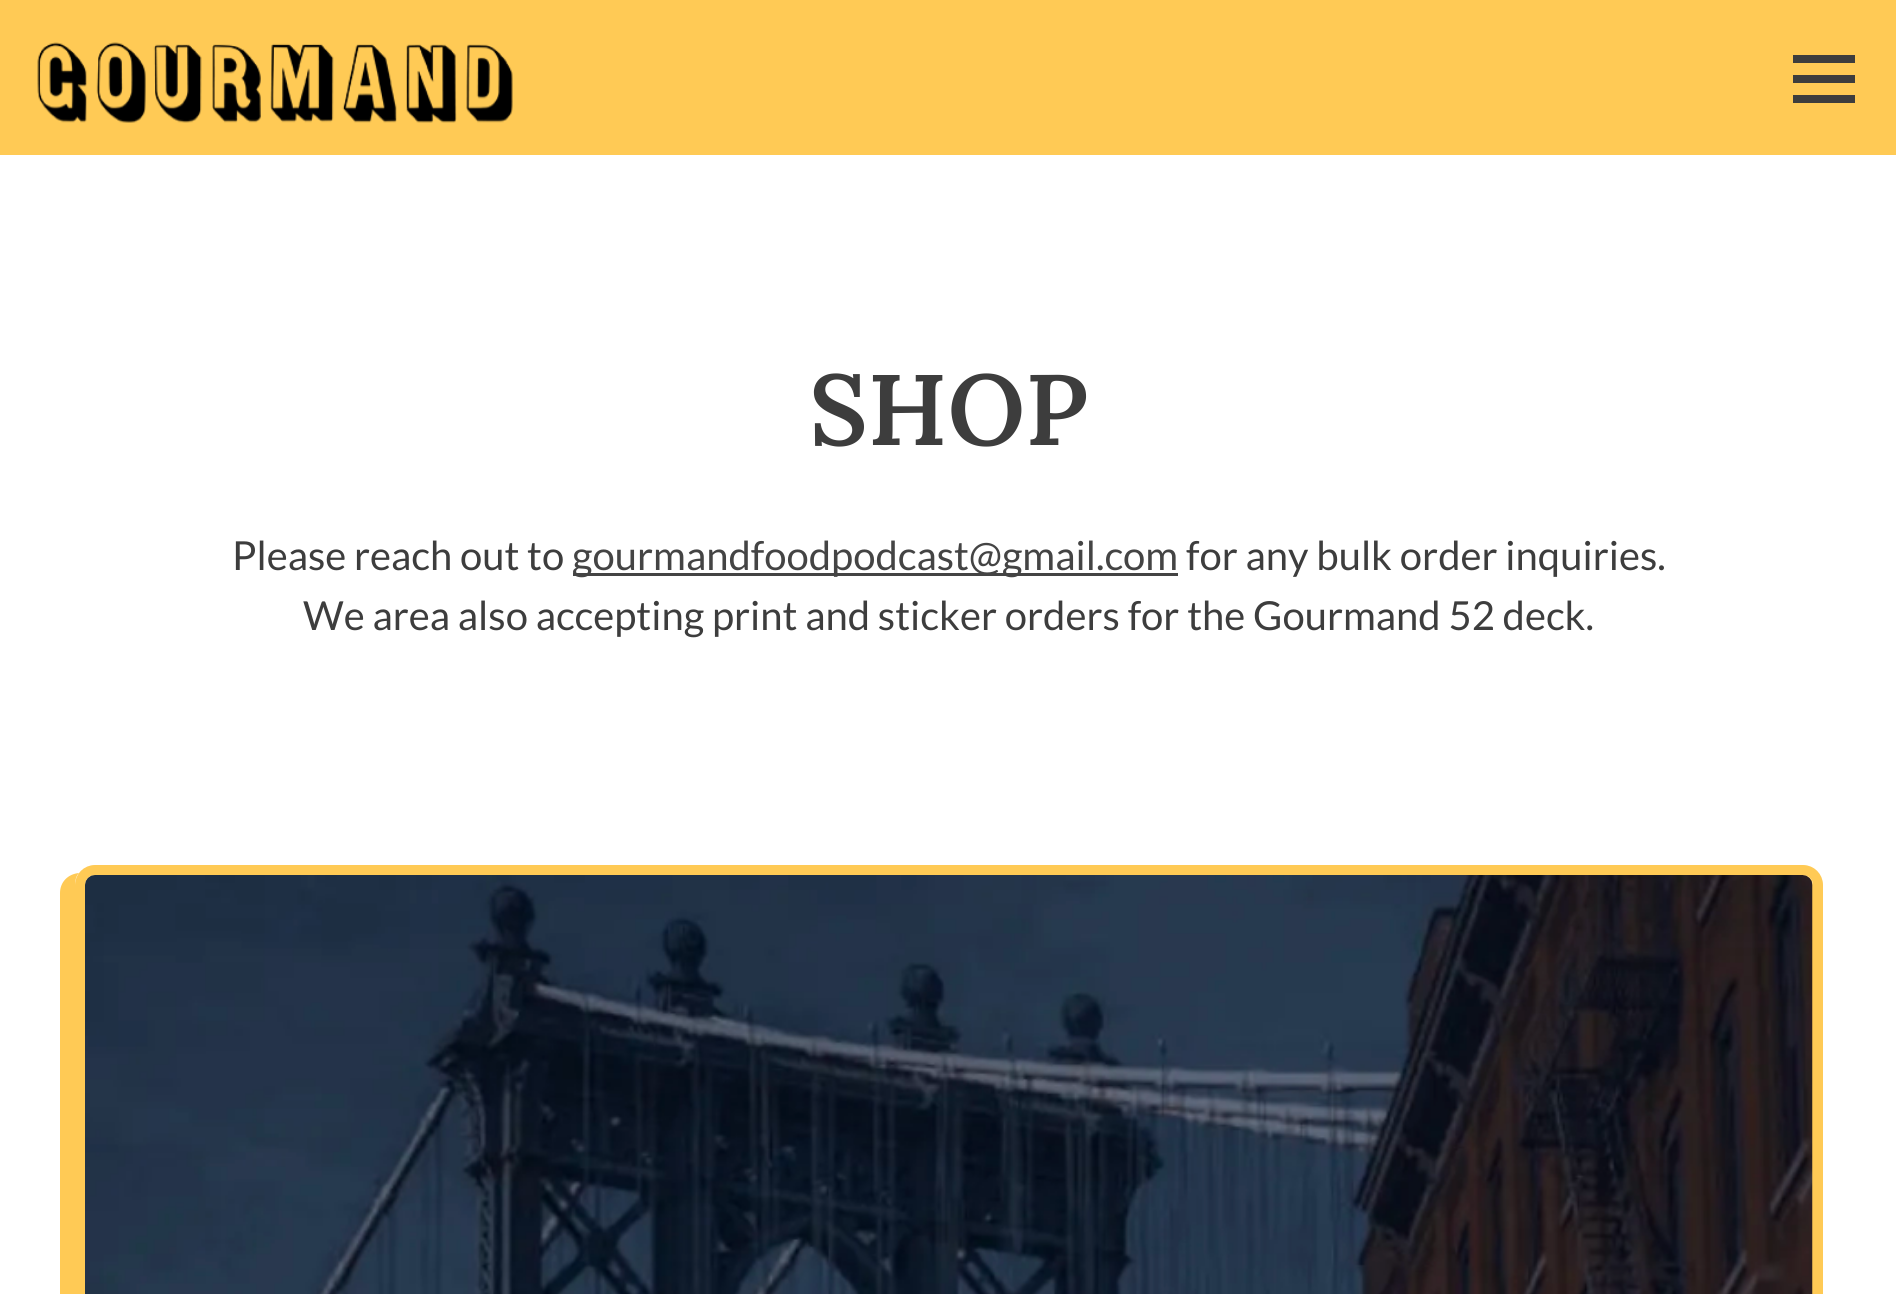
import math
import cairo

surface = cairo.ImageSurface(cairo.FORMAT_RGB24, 1896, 1294)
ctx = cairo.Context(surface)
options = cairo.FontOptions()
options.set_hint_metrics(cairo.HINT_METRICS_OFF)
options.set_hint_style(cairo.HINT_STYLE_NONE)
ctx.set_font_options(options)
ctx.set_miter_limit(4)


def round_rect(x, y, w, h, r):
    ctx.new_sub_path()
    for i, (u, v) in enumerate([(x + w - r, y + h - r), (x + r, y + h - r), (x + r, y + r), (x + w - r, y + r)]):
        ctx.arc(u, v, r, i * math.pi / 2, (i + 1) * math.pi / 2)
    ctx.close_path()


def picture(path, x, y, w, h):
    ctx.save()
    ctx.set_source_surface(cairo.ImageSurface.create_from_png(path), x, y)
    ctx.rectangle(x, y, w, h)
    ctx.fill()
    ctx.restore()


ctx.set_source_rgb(1, 1, 1)
ctx.paint()
ctx.set_source_rgb(1, 0.792, 0.333)
ctx.rectangle(0, 0, 1896, 155)
ctx.fill()
picture("img1.png", 37, 42, 476, 81)
ctx.set_source_rgb(0.239, 0.239, 0.239)
ctx.rectangle(1793, 55, 62, 8)
ctx.fill()
ctx.rectangle(1793, 75, 62, 8)
ctx.fill()
ctx.rectangle(1793, 95, 62, 8)
ctx.fill()
ctx.select_font_face("Lora SemiBold")
ctx.set_font_size(100)
ctx.move_to(809, 445)
ctx.show_text("SHOP")
ctx.select_font_face("Lato")
ctx.set_font_size(40)
ctx.move_to(232, 570)
ctx.show_text("Please reach out to")
ctx.set_source_rgb(0.267, 0.267, 0.267)
ctx.rectangle(573, 573, 605, 3)
ctx.fill()
ctx.move_to(572, 570)
ctx.show_text("gourmandfoodpodcast@gmail.com")
ctx.set_source_rgb(0.239, 0.239, 0.239)
ctx.move_to(1186, 570)
ctx.show_text("for any bulk order inquiries.")
ctx.move_to(303, 630)
ctx.show_text("We area also accepting print and sticker orders for the Gourmand 52 deck.")
ctx.set_source_rgb(1, 0.792, 0.333)
ctx.new_path()
ctx.move_to(79, 873)
ctx.curve_to(68, 874, 60, 882, 60, 893)
ctx.line_to(60, 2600)
ctx.curve_to(60, 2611, 69, 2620, 80, 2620)
ctx.line_to(1788, 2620)
ctx.curve_to(1794, 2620, 1800, 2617, 1804, 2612)
ctx.line_to(95, 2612)
ctx.curve_to(84, 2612, 75, 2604, 75, 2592)
ctx.line_to(75, 885)
ctx.curve_to(75, 881, 76, 876, 79, 873)
ctx.close_path()
ctx.fill()
round_rect(80, 870, 1738, 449, 15)
ctx.set_line_width(10)
ctx.stroke()
round_rect(85, 875, 1728, 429, 10)
ctx.fill()
picture("img2.png", 85, 875, 1728, 419)
surface.write_to_png("page.png")
